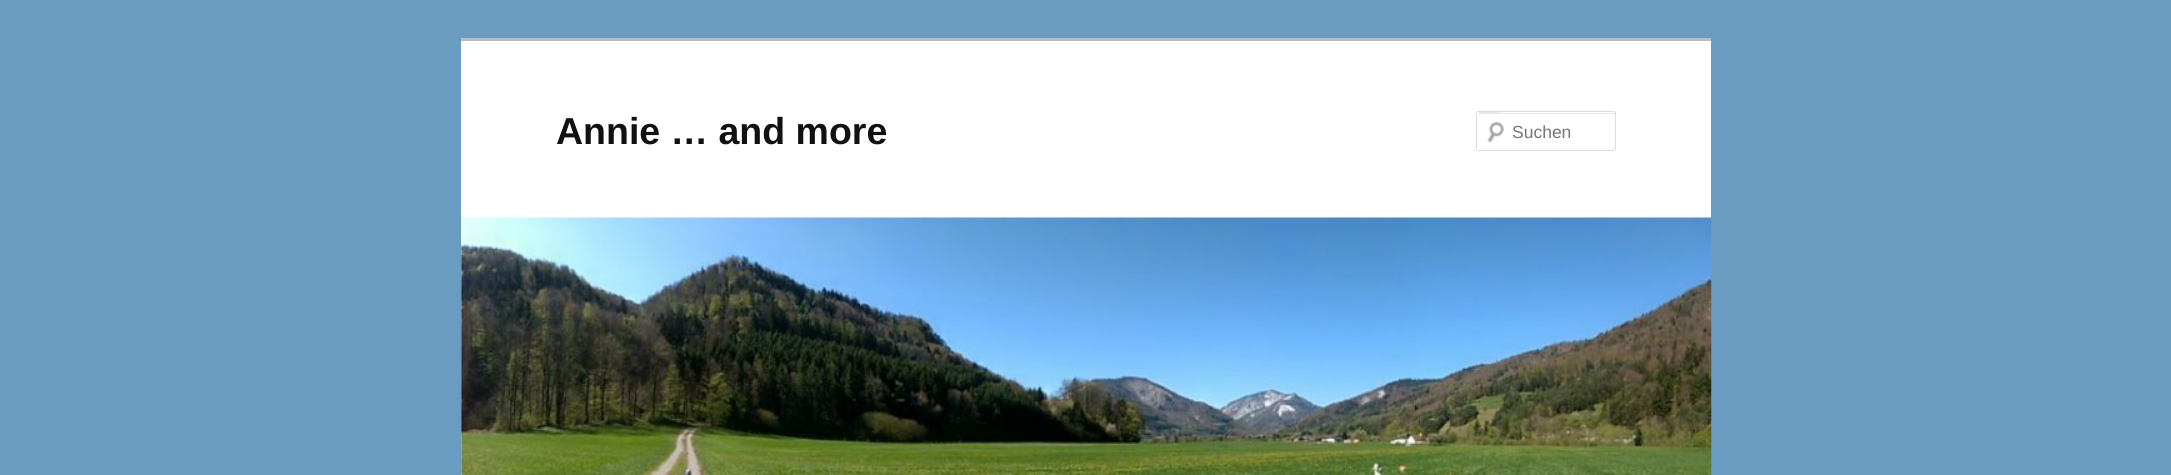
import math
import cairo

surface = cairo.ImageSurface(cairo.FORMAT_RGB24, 2171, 475)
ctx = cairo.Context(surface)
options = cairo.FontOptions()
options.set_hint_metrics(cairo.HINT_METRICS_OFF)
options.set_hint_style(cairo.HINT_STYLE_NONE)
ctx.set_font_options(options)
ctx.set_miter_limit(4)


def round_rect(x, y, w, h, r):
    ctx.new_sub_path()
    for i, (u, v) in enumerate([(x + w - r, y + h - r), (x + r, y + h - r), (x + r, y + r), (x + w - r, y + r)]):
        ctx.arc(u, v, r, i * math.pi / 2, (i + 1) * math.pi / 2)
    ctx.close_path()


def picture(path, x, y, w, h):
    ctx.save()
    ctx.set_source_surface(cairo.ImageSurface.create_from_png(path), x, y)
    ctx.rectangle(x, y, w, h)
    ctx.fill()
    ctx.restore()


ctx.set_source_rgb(0.416, 0.612, 0.757)
ctx.paint()
ctx.set_source_rgb(1, 1, 1)
ctx.rectangle(461, 41, 1250, 434)
ctx.fill()
ctx.set_source_rgb(0.733, 0.733, 0.733)
ctx.rectangle(461, 38, 1250, 3)
ctx.fill()
ctx.select_font_face("Liberation Sans", cairo.FONT_SLANT_NORMAL, cairo.FONT_WEIGHT_BOLD)
ctx.set_font_size(37.5)
ctx.set_source_rgb(0.067, 0.067, 0.067)
ctx.move_to(556, 144)
ctx.show_text("Annie … and more")
picture("img1.png", 1487, 121, 17, 22)
ctx.set_source_rgb(0.902, 0.902, 0.902)
ctx.new_path()
ctx.move_to(1479, 114)
ctx.line_to(1614, 114)
ctx.line_to(1615, 115)
ctx.line_to(1615, 113)
ctx.line_to(1502, 113)
ctx.curve_to(1501, 113, 1478, 107, 1478, 115)
ctx.curve_to(1478, 114, 1478, 114, 1479, 114)
ctx.close_path()
ctx.fill()
round_rect(1476.5, 111.5, 139, 39, 2)
ctx.set_source_rgb(0.867, 0.867, 0.867)
ctx.set_line_width(1)
ctx.stroke()
ctx.select_font_face("Liberation Sans")
ctx.set_font_size(17.5)
ctx.set_source_rgb(0.459, 0.459, 0.459)
ctx.move_to(1512, 138)
ctx.show_text("Suchen")
picture("img2.png", 461, 217, 1251, 258)
surface.write_to_png("page.png")
